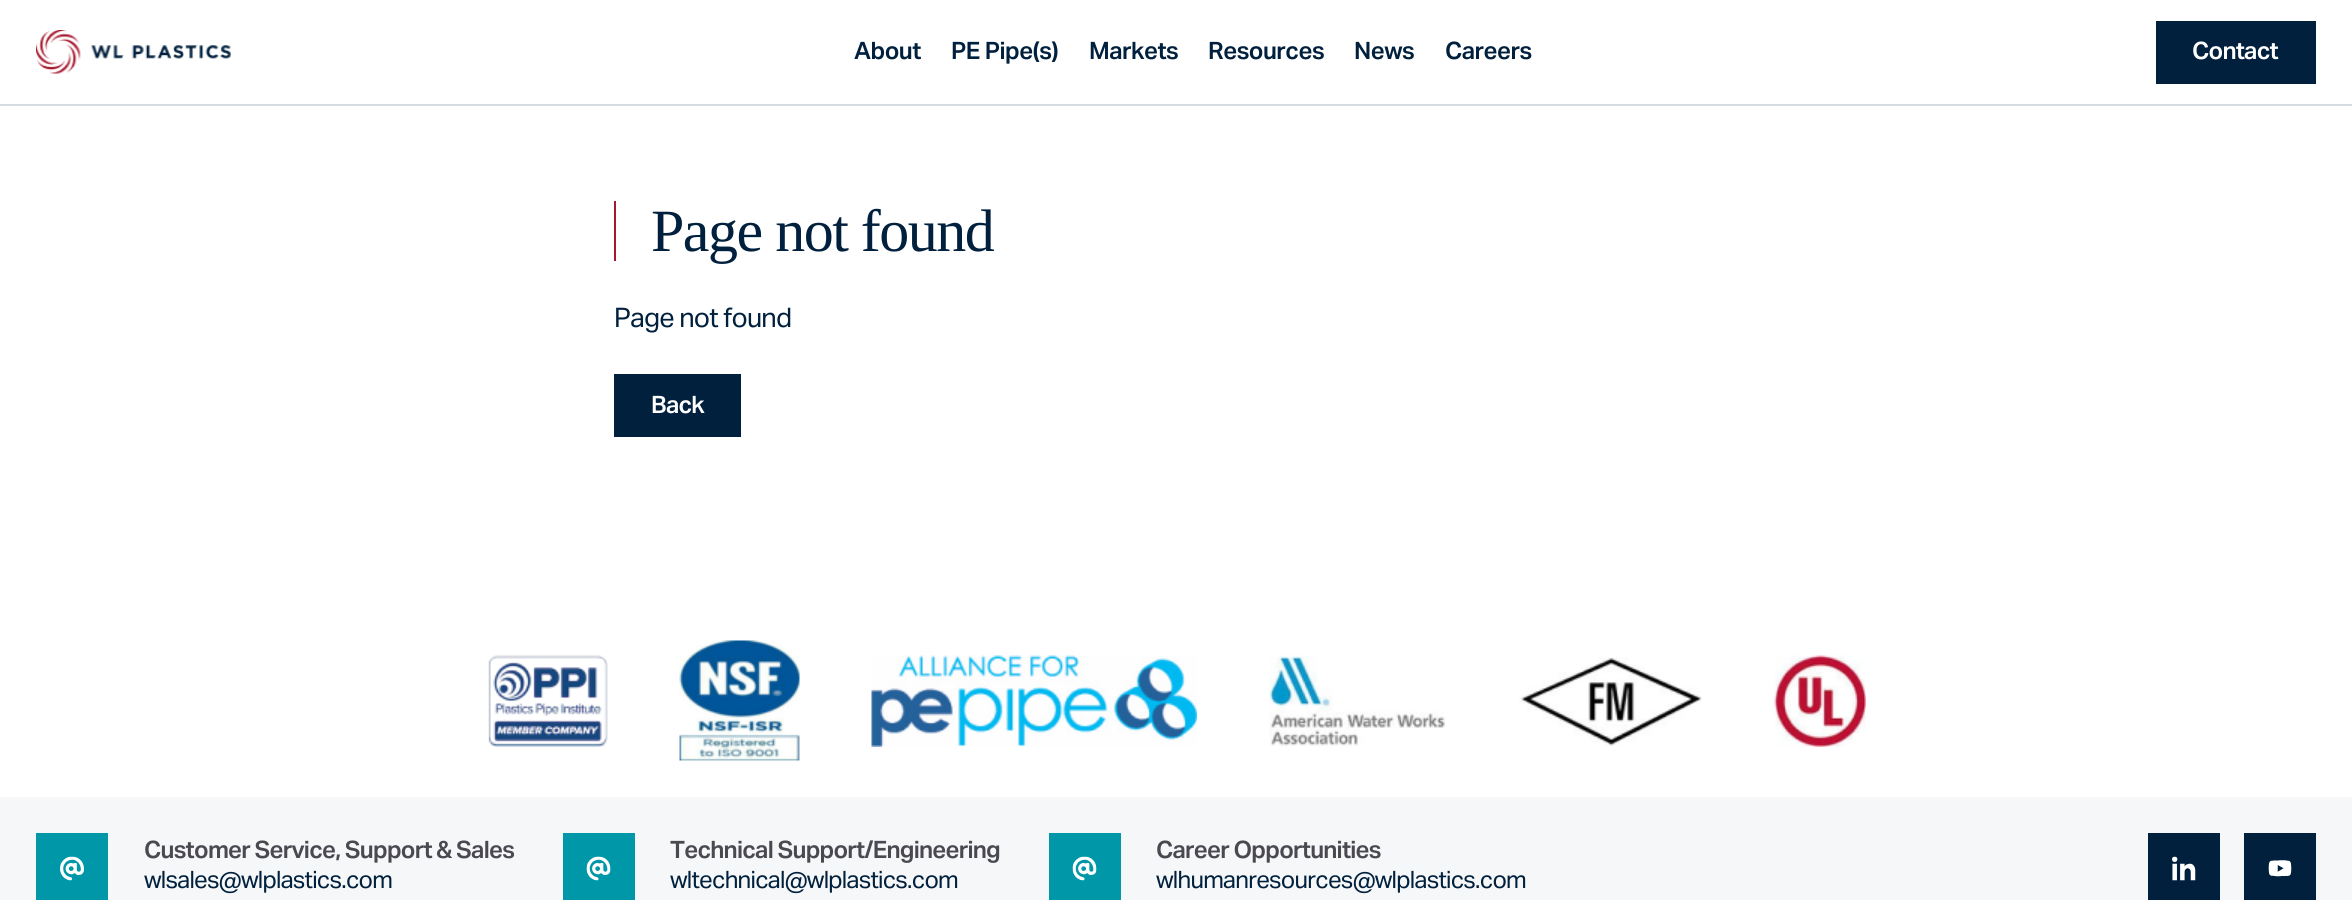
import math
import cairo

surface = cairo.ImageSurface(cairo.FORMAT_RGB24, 2352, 900)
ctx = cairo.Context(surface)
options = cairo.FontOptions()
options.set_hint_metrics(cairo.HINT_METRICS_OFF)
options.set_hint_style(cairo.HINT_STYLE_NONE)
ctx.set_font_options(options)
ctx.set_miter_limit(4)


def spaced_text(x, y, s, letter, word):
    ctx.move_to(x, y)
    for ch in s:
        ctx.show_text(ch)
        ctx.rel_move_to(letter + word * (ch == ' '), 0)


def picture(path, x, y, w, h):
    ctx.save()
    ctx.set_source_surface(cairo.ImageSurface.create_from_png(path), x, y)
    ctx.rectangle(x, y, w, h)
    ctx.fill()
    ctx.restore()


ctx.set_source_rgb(1, 1, 1)
ctx.paint()
ctx.set_source_rgb(0.839, 0.859, 0.878)
ctx.rectangle(0, 104, 2352, 2)
ctx.fill()
picture("img1.png", 36, 30, 195, 44)
ctx.select_font_face("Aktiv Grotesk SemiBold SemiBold")
ctx.set_font_size(24)
ctx.set_source_rgb(0, 0.125, 0.239)
spaced_text(854, 59, "About", -0.5, 0)
spaced_text(951, 59, "PE Pipe(s)", -0.5, 0)
spaced_text(1089, 59, "Markets", -0.5, 0)
spaced_text(1208, 59, "Resources", -0.5, 0)
spaced_text(1354, 59, "News", -0.5, 0)
spaced_text(1445, 59, "Careers", -0.5, 0)
ctx.rectangle(2156, 21, 160, 63)
ctx.fill()
ctx.set_source_rgb(1, 1, 1)
spaced_text(2192, 59, "Contact", -0.75, 0)
ctx.set_source_rgb(0.651, 0.094, 0.176)
ctx.rectangle(614, 201, 2, 60)
ctx.fill()
ctx.select_font_face("Tinos")
ctx.set_font_size(60)
ctx.set_source_rgb(0, 0.125, 0.239)
spaced_text(651, 251, "Page not found", -1.5, 0)
ctx.select_font_face("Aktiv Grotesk")
ctx.set_font_size(27)
spaced_text(614, 327, "Page not found", -0.75, 0)
ctx.rectangle(614, 374, 127, 63)
ctx.fill()
ctx.select_font_face("Aktiv Grotesk SemiBold SemiBold")
ctx.set_font_size(24)
ctx.set_source_rgb(1, 1, 1)
spaced_text(651, 413, "Back", -0.75, 0)
picture("img2.png", 488, 655, 120, 92)
picture("img3.png", 679, 640, 121, 121)
picture("img4.png", 871, 655, 326, 92)
picture("img5.png", 1269, 655, 177, 92)
picture("img6.png", 1519, 657, 183, 89)
picture("img7.png", 1774, 655, 92, 92)
ctx.set_source_rgb(0.961, 0.965, 0.969)
ctx.rectangle(0, 797, 2352, 103)
ctx.fill()
ctx.set_source_rgb(0, 0.596, 0.659)
ctx.rectangle(36, 833, 72, 67)
ctx.fill()
picture("img8.png", 60, 856, 24, 25)
ctx.set_source_rgb(0.29, 0.282, 0.318)
spaced_text(144, 858, "Customer Service, Support & Sales", -0.75, 0)
ctx.select_font_face("Aktiv Grotesk")
ctx.set_source_rgb(0, 0.125, 0.239)
spaced_text(144, 888, "wlsales@wlplastics.com", -0.75, 0)
ctx.set_source_rgb(0, 0.596, 0.659)
ctx.rectangle(563, 833, 72, 67)
ctx.fill()
picture("img9.png", 586, 856, 25, 25)
ctx.select_font_face("Aktiv Grotesk SemiBold SemiBold")
ctx.set_source_rgb(0.29, 0.282, 0.318)
spaced_text(670, 858, "Technical Support/Engineering", -0.75, 0)
ctx.select_font_face("Aktiv Grotesk")
ctx.set_source_rgb(0, 0.125, 0.239)
spaced_text(670, 888, "wltechnical@wlplastics.com", -0.75, 0)
ctx.set_source_rgb(0, 0.596, 0.659)
ctx.rectangle(1049, 833, 72, 67)
ctx.fill()
picture("img9.png", 1072, 856, 25, 25)
ctx.select_font_face("Aktiv Grotesk SemiBold SemiBold")
ctx.set_source_rgb(0.29, 0.282, 0.318)
spaced_text(1156, 858, "Career Opportunities", -0.75, 0)
ctx.select_font_face("Aktiv Grotesk")
ctx.set_source_rgb(0, 0.125, 0.239)
spaced_text(1156, 888, "wlhumanresources@wlplastics.com", -0.75, 0)
ctx.rectangle(2148, 833, 72, 67)
ctx.fill()
picture("img10.png", 2172, 856, 24, 25)
ctx.rectangle(2244, 833, 72, 67)
ctx.fill()
picture("img11.png", 2268, 860, 24, 17)
surface.write_to_png("page.png")
